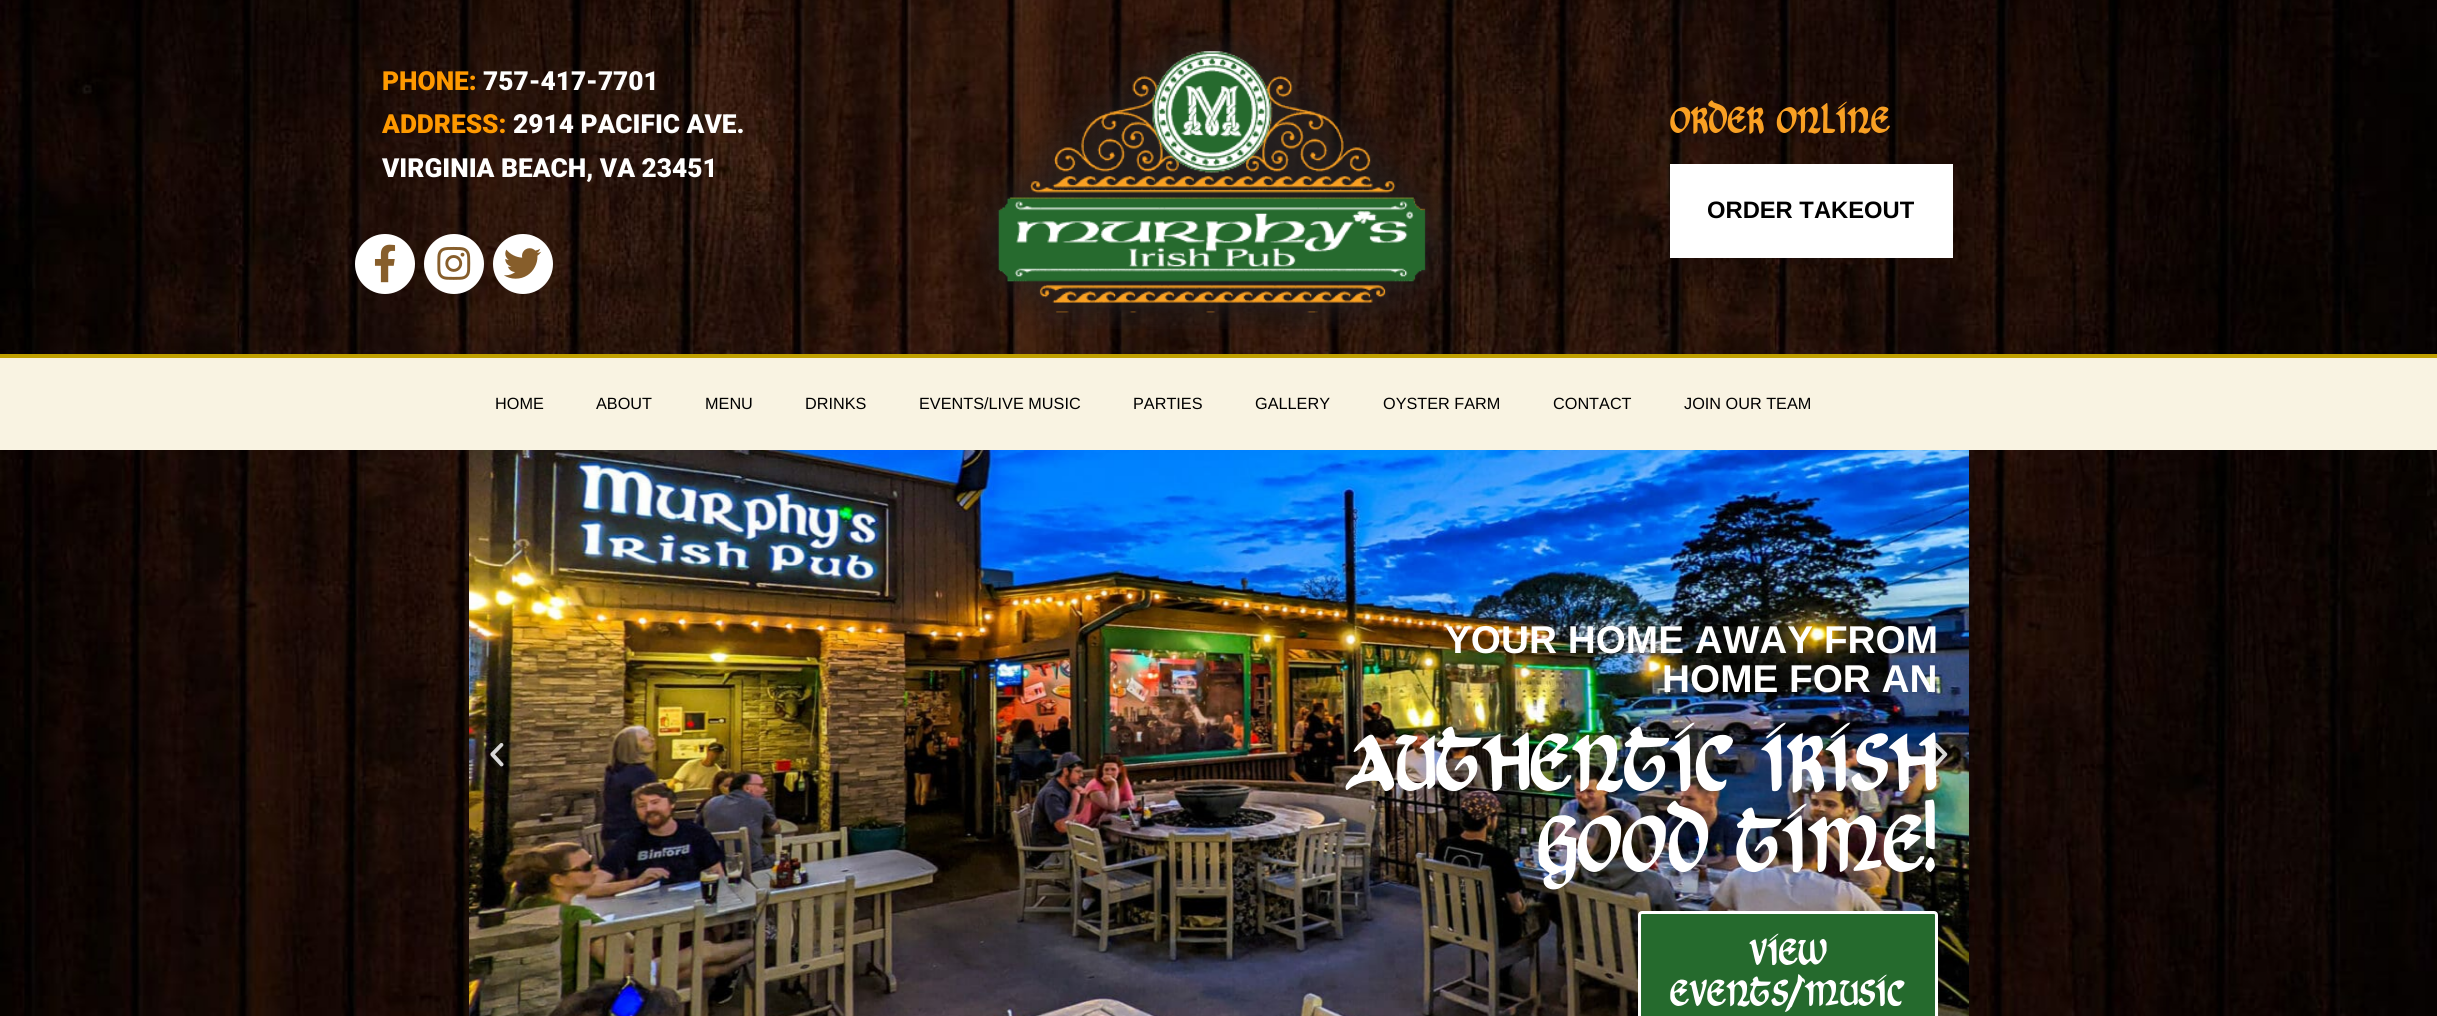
import math
import cairo

surface = cairo.ImageSurface(cairo.FORMAT_RGB24, 2437, 1016)
ctx = cairo.Context(surface)
options = cairo.FontOptions()
options.set_hint_metrics(cairo.HINT_METRICS_OFF)
options.set_hint_style(cairo.HINT_STYLE_NONE)
ctx.set_font_options(options)
ctx.set_miter_limit(4)


def round_rect(x, y, w, h, r):
    ctx.new_sub_path()
    for i, (u, v) in enumerate([(x + w - r, y + h - r), (x + r, y + h - r), (x + r, y + r), (x + w - r, y + r)]):
        ctx.arc(u, v, r, i * math.pi / 2, (i + 1) * math.pi / 2)
    ctx.close_path()


def picture(path, x, y, w, h):
    ctx.save()
    ctx.set_source_surface(cairo.ImageSurface.create_from_png(path), x, y)
    ctx.rectangle(x, y, w, h)
    ctx.fill()
    ctx.restore()


ctx.set_source_rgb(1, 1, 1)
ctx.paint()
picture("img1.png", 0, 0, 2437, 1016)
ctx.select_font_face("Roboto Black")
ctx.set_font_size(26.25)
ctx.set_source_rgb(1, 0.6, 0)
ctx.move_to(382, 90)
ctx.show_text("PHONE:")
ctx.set_source_rgb(1, 1, 1)
ctx.move_to(483, 90)
ctx.show_text("757-417-7701")
ctx.set_source_rgb(1, 0.6, 0)
ctx.move_to(382, 133)
ctx.show_text("ADDRESS:")
ctx.set_source_rgb(1, 1, 1)
ctx.move_to(513, 133)
ctx.show_text("2914 PACIFIC AVE.")
ctx.move_to(382, 177)
ctx.show_text("VIRGINIA BEACH, VA 23451")
ctx.new_path()
ctx.arc(385, 264, 30, 0, 2 * math.pi)
ctx.fill()
picture("img2.png", 374, 244, 22, 39)
ctx.arc(454, 264, 30, 0, 2 * math.pi)
ctx.fill()
picture("img3.png", 437, 246, 34, 34)
ctx.arc(523, 264, 30, 0, 2 * math.pi)
ctx.fill()
picture("img4.png", 504, 248, 38, 31)
picture("img5.png", 980, 33, 470, 296)
ctx.select_font_face("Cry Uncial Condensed")
ctx.set_font_size(41.25)
ctx.set_source_rgb(0.976, 0.627, 0.137)
ctx.move_to(1670, 133)
ctx.show_text("ORDER ONLINE")
ctx.set_source_rgb(1, 1, 1)
ctx.rectangle(1670, 164, 283, 94)
ctx.fill()
ctx.select_font_face("Liberation Sans", cairo.FONT_SLANT_NORMAL, cairo.FONT_WEIGHT_BOLD)
ctx.set_font_size(23.75)
ctx.set_source_rgb(0, 0, 0)
ctx.move_to(1707, 218)
ctx.show_text("ORDER TAKEOUT")
ctx.set_source_rgb(0.976, 0.953, 0.886)
ctx.rectangle(0, 358, 2437, 92)
ctx.fill()
ctx.set_source_rgb(0.749, 0.624, 0)
ctx.rectangle(0, 354, 2437, 4)
ctx.fill()
ctx.select_font_face("Liberation Sans")
ctx.set_font_size(16.25)
ctx.set_source_rgb(0, 0, 0)
ctx.move_to(495, 409)
ctx.show_text("HOME")
ctx.move_to(596, 409)
ctx.show_text("ABOUT")
ctx.move_to(705, 409)
ctx.show_text("MENU")
ctx.move_to(805, 409)
ctx.show_text("DRINKS")
ctx.move_to(919, 409)
ctx.show_text("EVENTS/LIVE MUSIC")
ctx.move_to(1133, 409)
ctx.show_text("PARTIES")
ctx.move_to(1255, 409)
ctx.show_text("GALLERY")
ctx.move_to(1383, 409)
ctx.show_text("OYSTER FARM")
ctx.move_to(1553, 409)
ctx.show_text("CONTACT")
ctx.move_to(1684, 409)
ctx.show_text("JOIN OUR TEAM")
picture("img7.png", 469, 450, 1500, 566)
picture("img6.png", 490, 743, 14, 24)
ctx.select_font_face("Liberation Sans", cairo.FONT_SLANT_NORMAL, cairo.FONT_WEIGHT_BOLD)
ctx.set_font_size(38.75)
ctx.set_source_rgb(1, 1, 1)
ctx.move_to(1445, 653)
ctx.show_text("YOUR HOME AWAY FROM")
ctx.move_to(1662, 692)
ctx.show_text("HOME FOR AN")
ctx.select_font_face("Cry Uncial Condensed")
ctx.set_font_size(90)
ctx.move_to(1345, 791)
ctx.show_text("AUTHENTIC IRISH")
ctx.move_to(1538, 872)
ctx.show_text("GOOD TIME!")
ctx.set_source_rgb(0.145, 0.416, 0.176)
round_rect(1639.5, 912.5, 297, 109, 2.5)
ctx.fill_preserve()
ctx.set_source_rgb(1, 1, 1)
ctx.set_line_width(3)
ctx.stroke()
ctx.set_font_size(41.25)
ctx.move_to(1749, 965)
ctx.show_text("VIEW")
ctx.move_to(1670, 1006)
ctx.show_text("EVENTS/MUSIC")
picture("img8.png", 1934, 743, 14, 24)
surface.write_to_png("page.png")
